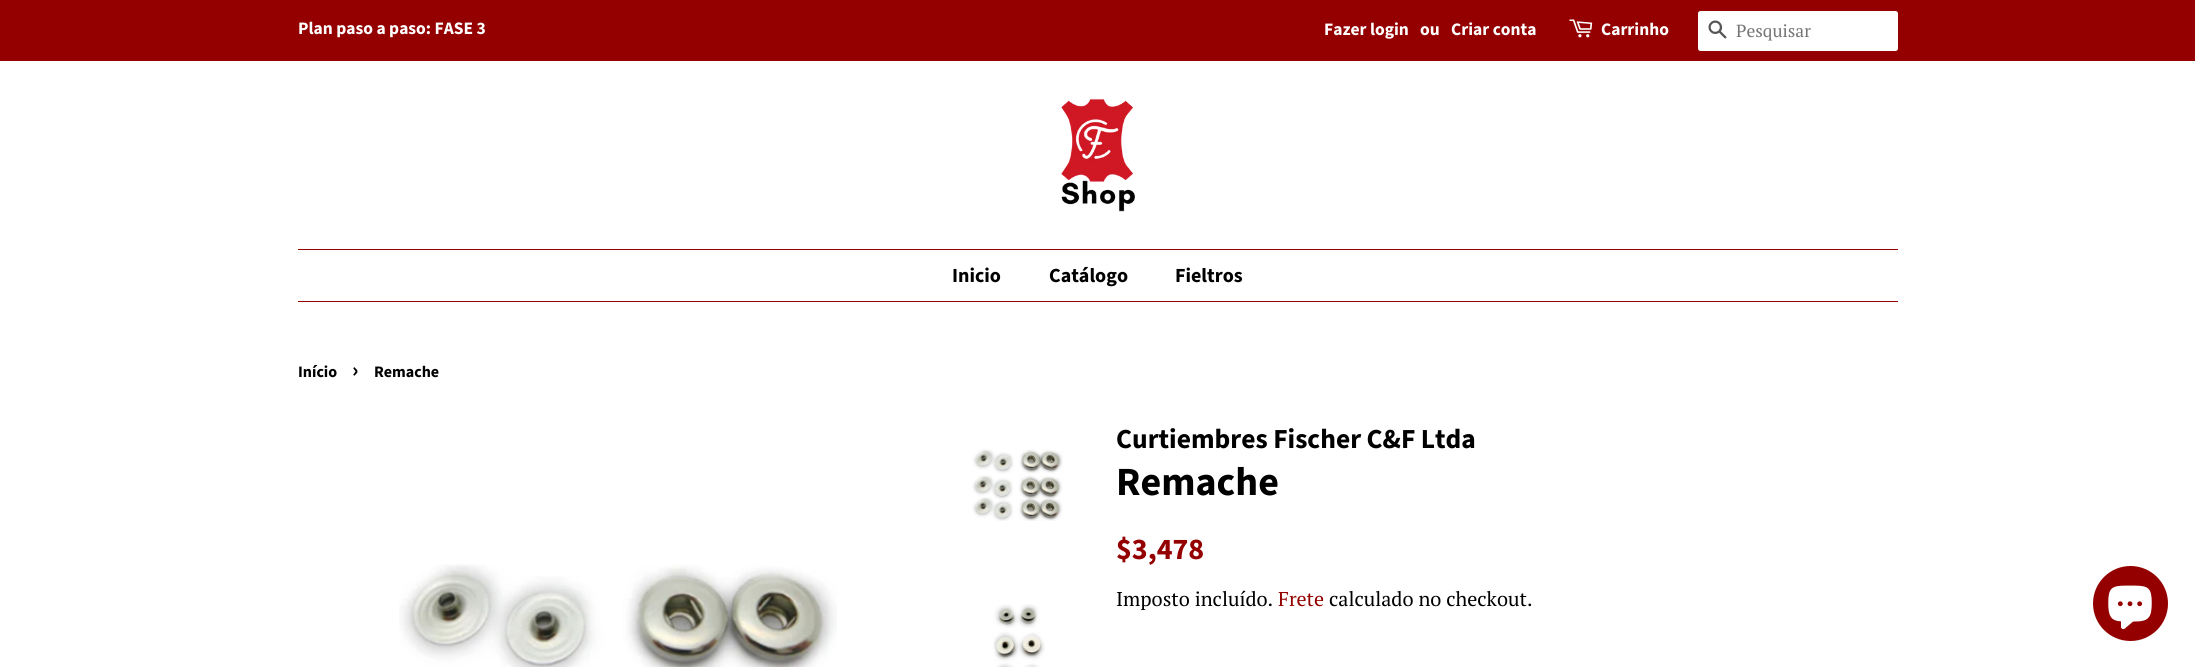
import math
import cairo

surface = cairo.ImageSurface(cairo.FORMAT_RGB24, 2195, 667)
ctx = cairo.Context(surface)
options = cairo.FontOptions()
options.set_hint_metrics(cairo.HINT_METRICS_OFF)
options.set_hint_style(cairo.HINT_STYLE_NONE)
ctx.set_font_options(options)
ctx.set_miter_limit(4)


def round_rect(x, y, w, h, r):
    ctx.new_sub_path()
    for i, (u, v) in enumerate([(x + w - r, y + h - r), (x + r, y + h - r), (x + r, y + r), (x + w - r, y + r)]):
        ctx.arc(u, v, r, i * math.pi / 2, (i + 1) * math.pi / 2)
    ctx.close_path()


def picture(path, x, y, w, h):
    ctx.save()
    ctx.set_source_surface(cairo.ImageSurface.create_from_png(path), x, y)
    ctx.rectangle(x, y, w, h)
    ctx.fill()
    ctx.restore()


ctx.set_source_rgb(1, 1, 1)
ctx.paint()
ctx.set_source_rgb(0.58, 0, 0)
ctx.rectangle(0, 0, 2195, 61)
ctx.fill()
ctx.select_font_face("Source Sans Pro", cairo.FONT_SLANT_NORMAL, cairo.FONT_WEIGHT_BOLD)
ctx.set_font_size(17.5)
ctx.set_source_rgb(1, 1, 1)
ctx.move_to(298, 34)
ctx.show_text("Plan paso a paso: FASE 3")
ctx.move_to(1324, 35)
ctx.show_text("Fazer login")
ctx.move_to(1420, 35)
ctx.show_text("ou")
ctx.move_to(1451, 35)
ctx.show_text("Criar conta")
picture("img1.png", 1569, 19, 24, 19)
ctx.move_to(1601, 35)
ctx.show_text("Carrinho")
round_rect(1698, 11, 200, 40, 2.5)
ctx.fill()
picture("img2.png", 1708, 20, 19, 19)
ctx.select_font_face("PT Serif")
ctx.set_source_rgb(0.459, 0.459, 0.459)
ctx.move_to(1736, 37)
ctx.show_text("Pesquisar")
picture("img3.png", 1061, 98, 74, 114)
ctx.set_source_rgb(0.58, 0, 0)
ctx.rectangle(298, 249, 1600, 1)
ctx.fill()
ctx.rectangle(298, 301, 1600, 1)
ctx.fill()
ctx.select_font_face("Source Sans Pro", cairo.FONT_SLANT_NORMAL, cairo.FONT_WEIGHT_BOLD)
ctx.set_font_size(20)
ctx.set_source_rgb(0, 0, 0)
ctx.move_to(952, 282)
ctx.show_text("Inicio")
ctx.move_to(1049, 282)
ctx.show_text("Catálogo")
ctx.move_to(1175, 282)
ctx.show_text("Fieltros")
ctx.set_font_size(16)
ctx.move_to(298, 377)
ctx.show_text("Início")
ctx.set_font_size(22)
ctx.move_to(352, 377)
ctx.show_text("›")
ctx.set_font_size(16)
ctx.move_to(374, 377)
ctx.show_text("Remache")
picture("img4.png", 399, 564, 438, 103)
picture("img5.png", 972, 449, 91, 72)
picture("img6.png", 993, 604, 52, 63)
ctx.set_font_size(27.5)
ctx.move_to(1116, 448)
ctx.show_text("Curtiembres Fischer C&F Ltda")
ctx.set_font_size(40)
ctx.move_to(1116, 495)
ctx.show_text("Remache")
ctx.set_font_size(30)
ctx.set_source_rgb(0.58, 0, 0)
ctx.move_to(1116, 559)
ctx.show_text("$3,478")
ctx.select_font_face("PT Serif")
ctx.set_font_size(20)
ctx.set_source_rgb(0, 0, 0)
ctx.move_to(1116, 606)
ctx.show_text("Imposto incluído.")
ctx.set_source_rgb(0.58, 0, 0)
ctx.move_to(1278, 606)
ctx.show_text("Frete")
ctx.set_source_rgb(0, 0, 0)
ctx.move_to(1329, 606)
ctx.show_text("calculado no checkout.")
ctx.set_source_rgb(0.58, 0, 0)
ctx.new_path()
ctx.arc(2130.5, 603.5, 37.5, 0, 2 * math.pi)
ctx.fill()
picture("img7.png", 2108, 585, 44, 45)
surface.write_to_png("page.png")
